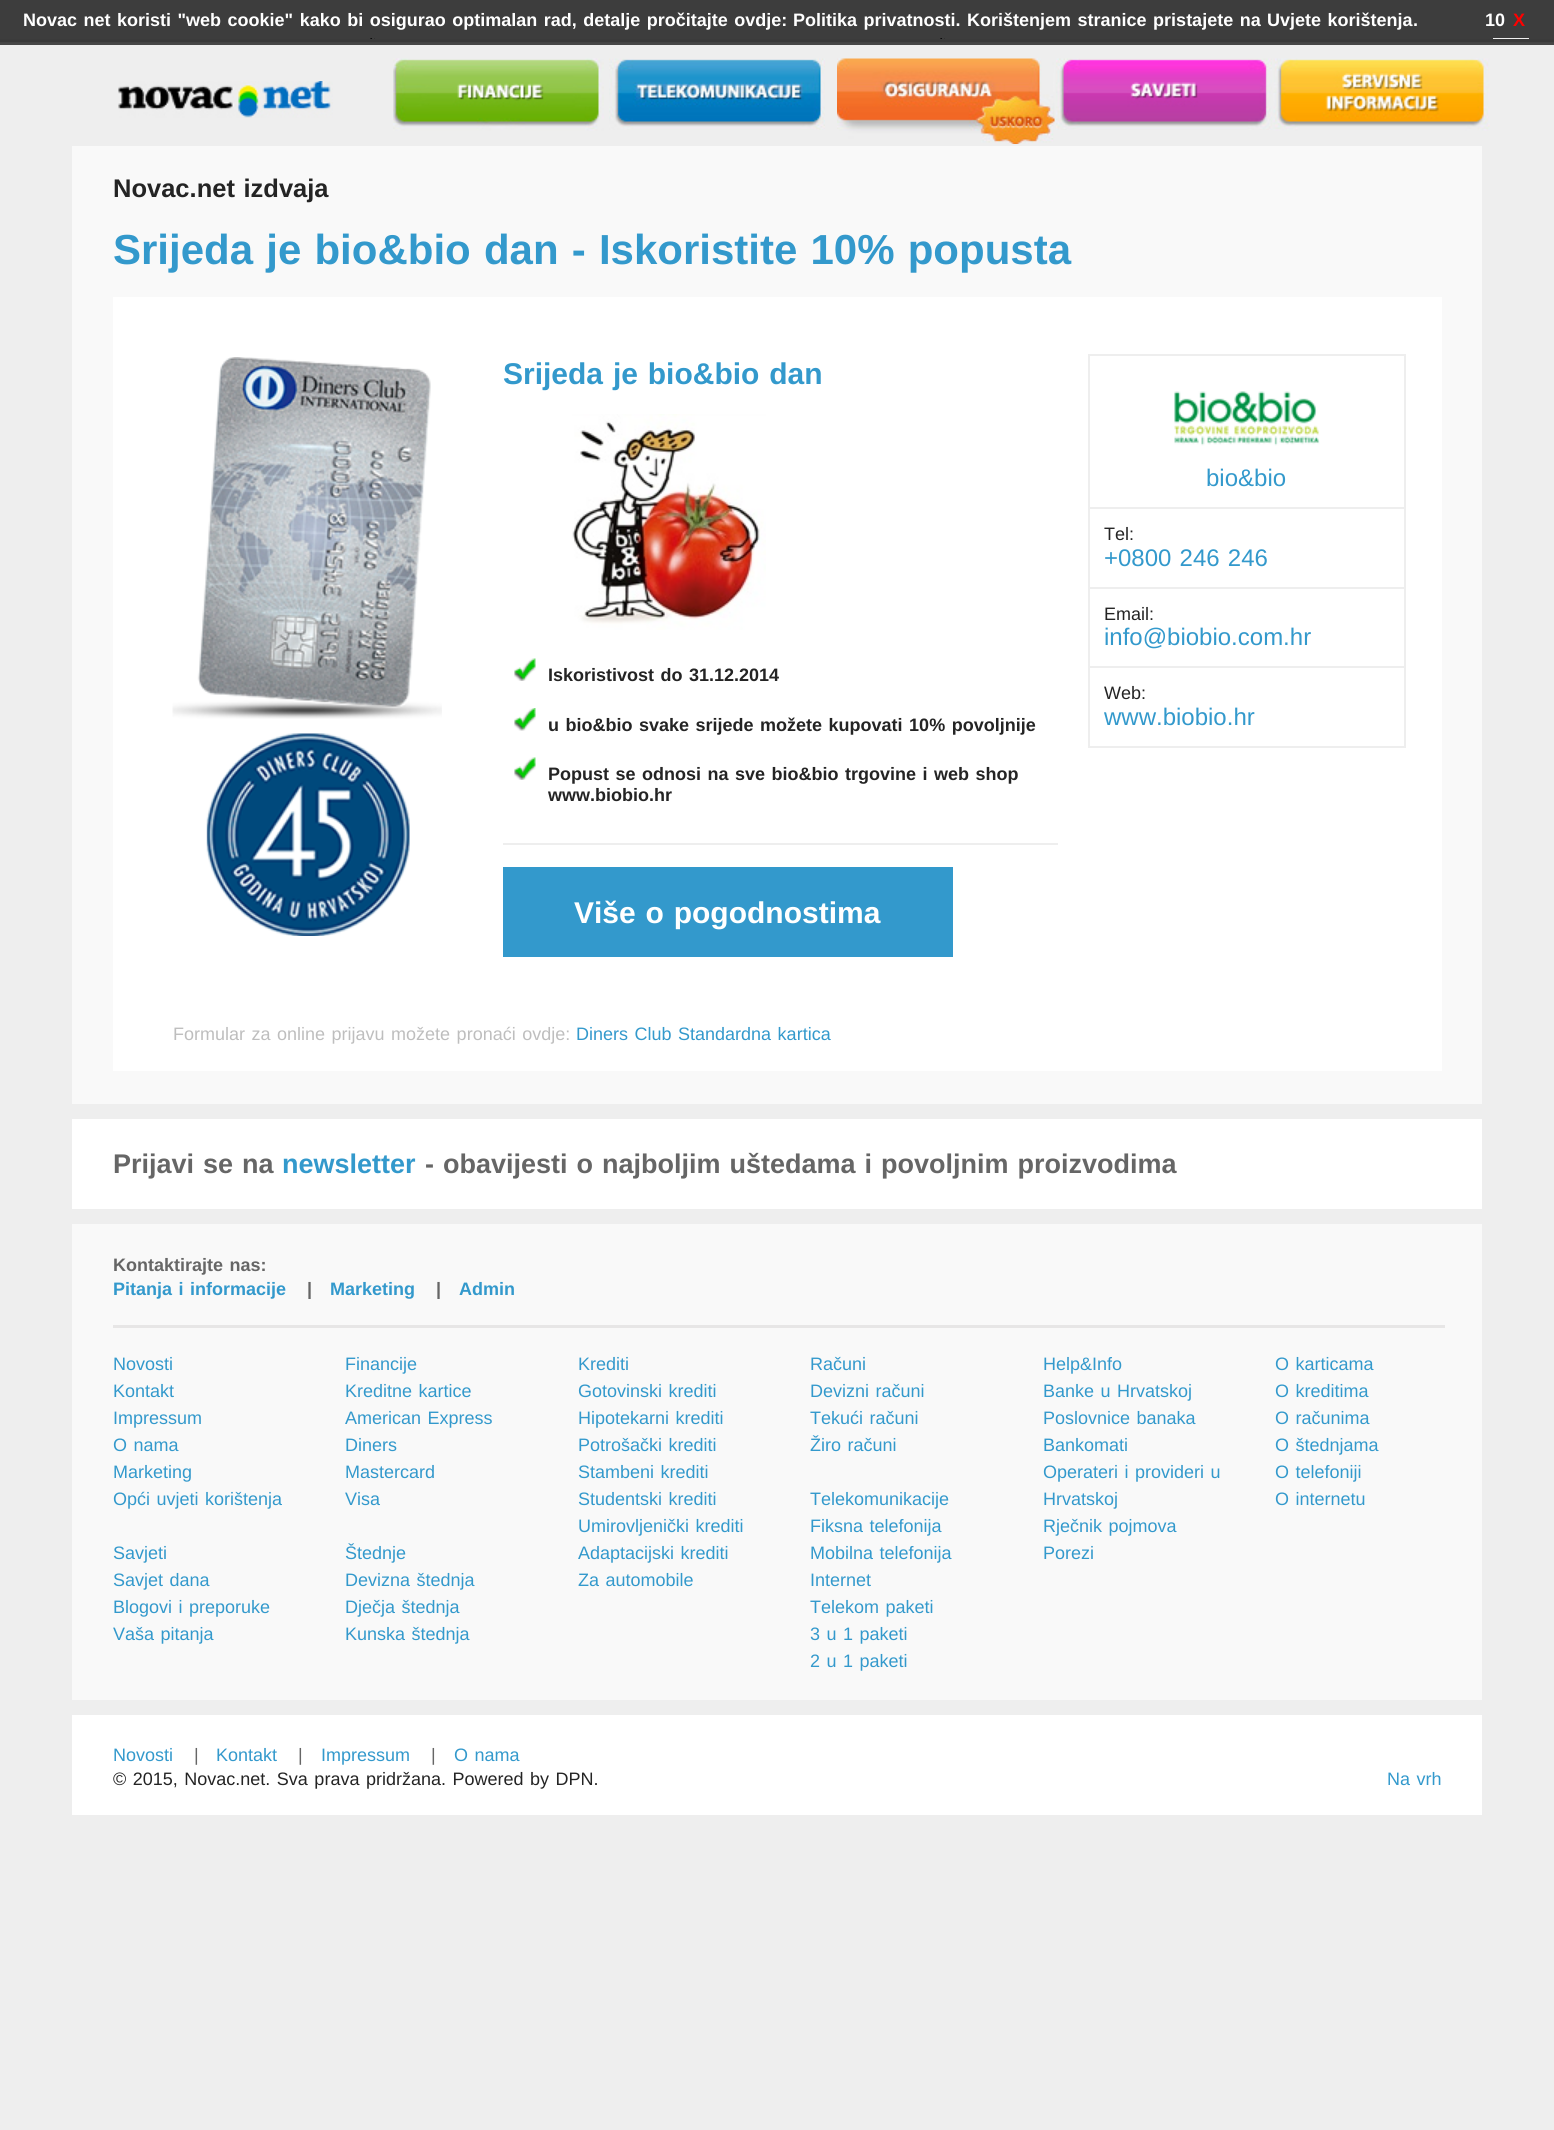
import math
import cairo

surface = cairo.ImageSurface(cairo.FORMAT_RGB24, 1554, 2130)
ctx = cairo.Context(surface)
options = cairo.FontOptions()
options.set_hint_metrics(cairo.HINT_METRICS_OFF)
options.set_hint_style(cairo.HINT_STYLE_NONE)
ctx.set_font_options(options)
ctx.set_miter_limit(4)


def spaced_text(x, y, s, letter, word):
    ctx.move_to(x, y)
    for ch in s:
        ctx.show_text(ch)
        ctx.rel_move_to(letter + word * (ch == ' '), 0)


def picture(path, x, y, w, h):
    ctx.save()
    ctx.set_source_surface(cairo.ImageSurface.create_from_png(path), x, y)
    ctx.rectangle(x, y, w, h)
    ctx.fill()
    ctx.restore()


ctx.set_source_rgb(0.933, 0.933, 0.933)
ctx.paint()
ctx.set_source_rgb(0.239, 0.239, 0.239)
ctx.rectangle(0, 0, 1554, 38)
ctx.fill()
ctx.select_font_face("Liberation Sans", cairo.FONT_SLANT_NORMAL, cairo.FONT_WEIGHT_BOLD)
ctx.set_font_size(18)
ctx.set_source_rgb(1, 1, 1)
spaced_text(23, 26, "Novac net koristi \"web cookie\" kako bi osigurao optimalan rad, detalje pročitajte ovdje:", 0, 1.5)
spaced_text(793, 26, "Politika privatnosti. Korištenjem stranice pristajete na", 0, 1.5)
spaced_text(1267, 26, "Uvjete korištenja", 0, 1.5)
ctx.move_to(1413, 26)
ctx.show_text(".")
ctx.move_to(1485, 26)
ctx.show_text("10")
ctx.set_source_rgb(1, 0, 0)
ctx.move_to(1513, 26)
ctx.show_text("X")
picture("img1.png", 118, 81, 215, 37)
picture("img2.png", 393, 58, 211, 73)
picture("img3.png", 609, 58, 216, 72)
picture("img4.png", 837, 58, 218, 86)
picture("img5.png", 1056, 58, 216, 72)
picture("img6.png", 1273, 58, 217, 73)
ctx.set_source_rgb(0.973, 0.973, 0.973)
ctx.rectangle(72, 146, 1410, 958)
ctx.fill()
ctx.set_font_size(25.5)
ctx.set_source_rgb(0.141, 0.141, 0.141)
spaced_text(113, 197, "Novac.net izdvaja", 0, 1.5)
ctx.set_font_size(42)
ctx.set_source_rgb(0.2, 0.6, 0.8)
spaced_text(113, 264, "Srijeda je bio&bio dan - Iskoristite 10% popusta", 0, 1.5)
ctx.set_source_rgb(1, 1, 1)
ctx.rectangle(113, 297, 1329, 774)
ctx.fill()
picture("img7.png", 172, 357, 270, 579)
ctx.set_font_size(30)
ctx.set_source_rgb(0.2, 0.6, 0.8)
spaced_text(503, 384, "Srijeda je bio&bio dan", 0, 1.5)
picture("img8.png", 572, 414, 194, 216)
ctx.set_source_rgb(0.933, 0.933, 0.933)
ctx.rectangle(503, 843, 555, 2)
ctx.fill()
picture("img9.png", 514, 658, 22, 23)
ctx.set_font_size(18)
ctx.set_source_rgb(0.141, 0.141, 0.141)
spaced_text(548, 681, "Iskoristivost do 31.12.2014", 0, 1.5)
picture("img10.png", 514, 708, 22, 23)
spaced_text(548, 731, "u bio&bio svake srijede možete kupovati 10% povoljnije", 0, 1.5)
picture("img9.png", 514, 757, 22, 23)
spaced_text(548, 780, "Popust se odnosi na sve bio&bio trgovine i web shop", 0, 1.5)
ctx.move_to(548, 801)
ctx.show_text("www.biobio.hr")
ctx.set_source_rgb(0.2, 0.6, 0.8)
ctx.rectangle(503, 867, 450, 90)
ctx.fill()
ctx.set_font_size(30)
ctx.set_source_rgb(1, 1, 1)
spaced_text(574, 923, "Više o pogodnostima", 0, 1.5)
ctx.rectangle(1089, 355, 316, 153)
ctx.set_source_rgb(0.933, 0.933, 0.933)
ctx.stroke()
picture("img11.png", 1174, 391, 146, 55)
ctx.select_font_face("Liberation Sans")
ctx.set_font_size(24)
ctx.set_source_rgb(0.2, 0.6, 0.8)
ctx.move_to(1206, 486)
ctx.show_text("bio&bio")
ctx.set_source_rgb(0.933, 0.933, 0.933)
ctx.rectangle(1404, 509, 2, 79)
ctx.fill()
ctx.rectangle(1088, 587, 318, 2)
ctx.fill()
ctx.rectangle(1088, 509, 2, 79)
ctx.fill()
ctx.set_font_size(18)
ctx.set_source_rgb(0.141, 0.141, 0.141)
ctx.move_to(1104, 540)
ctx.show_text("Tel:")
ctx.set_font_size(24)
ctx.set_source_rgb(0.2, 0.6, 0.8)
spaced_text(1104, 566, "+0800 246 246", 0, 1.5)
ctx.set_source_rgb(0.933, 0.933, 0.933)
ctx.rectangle(1404, 588, 2, 159)
ctx.fill()
ctx.rectangle(1088, 666, 318, 2)
ctx.fill()
ctx.rectangle(1088, 588, 2, 80)
ctx.fill()
ctx.set_font_size(18)
ctx.set_source_rgb(0.141, 0.141, 0.141)
ctx.move_to(1104, 620)
ctx.show_text("Email:")
ctx.set_font_size(24)
ctx.set_source_rgb(0.2, 0.6, 0.8)
ctx.move_to(1104, 645)
ctx.show_text("info@biobio.com.hr")
ctx.set_source_rgb(0.933, 0.933, 0.933)
ctx.rectangle(1088, 746, 318, 2)
ctx.fill()
ctx.rectangle(1088, 668, 2, 79)
ctx.fill()
ctx.set_font_size(18)
ctx.set_source_rgb(0.141, 0.141, 0.141)
ctx.move_to(1104, 699)
ctx.show_text("Web:")
ctx.set_font_size(24)
ctx.set_source_rgb(0.2, 0.6, 0.8)
ctx.move_to(1104, 725)
ctx.show_text("www.biobio.hr")
ctx.set_font_size(18)
ctx.set_source_rgb(0.745, 0.745, 0.745)
spaced_text(173, 1040, "Formular za online prijavu možete pronaći ovdje:", 0, 1.5)
ctx.set_source_rgb(0.2, 0.6, 0.8)
spaced_text(576, 1040, "Diners Club Standardna kartica", 0, 1.5)
ctx.set_source_rgb(1, 1, 1)
ctx.rectangle(72, 1119, 1410, 90)
ctx.fill()
ctx.select_font_face("Liberation Sans", cairo.FONT_SLANT_NORMAL, cairo.FONT_WEIGHT_BOLD)
ctx.set_font_size(27)
ctx.set_source_rgb(0.4, 0.4, 0.4)
spaced_text(113, 1173, "Prijavi se na", 0, 1.5)
ctx.set_source_rgb(0.2, 0.6, 0.8)
ctx.move_to(282, 1173)
ctx.show_text("newsletter")
ctx.set_source_rgb(0.4, 0.4, 0.4)
spaced_text(425, 1173, "- obavijesti o najboljim uštedama i povoljnim proizvodima", 0, 1.5)
ctx.set_source_rgb(0.973, 0.973, 0.973)
ctx.rectangle(72, 1224, 1410, 476)
ctx.fill()
ctx.set_font_size(18)
ctx.set_source_rgb(0.4, 0.4, 0.4)
spaced_text(113, 1271, "Kontaktirajte nas:", 0, 1.5)
ctx.set_source_rgb(0.2, 0.6, 0.8)
spaced_text(113, 1295, "Pitanja i informacije", 0, 1.5)
ctx.set_source_rgb(0.4, 0.4, 0.4)
ctx.move_to(307, 1295)
ctx.show_text("|")
ctx.set_source_rgb(0.2, 0.6, 0.8)
ctx.move_to(330, 1295)
ctx.show_text("Marketing")
ctx.set_source_rgb(0.4, 0.4, 0.4)
ctx.move_to(436, 1295)
ctx.show_text("|")
ctx.set_source_rgb(0.2, 0.6, 0.8)
ctx.move_to(459, 1295)
ctx.show_text("Admin")
ctx.set_source_rgb(0.906, 0.902, 0.902)
ctx.rectangle(113, 1325, 1332, 3)
ctx.fill()
ctx.select_font_face("Liberation Sans")
ctx.set_source_rgb(0.2, 0.6, 0.8)
ctx.move_to(113, 1370)
ctx.show_text("Novosti")
ctx.move_to(113, 1397)
ctx.show_text("Kontakt")
ctx.move_to(113, 1424)
ctx.show_text("Impressum")
spaced_text(113, 1451, "O nama", 0, 1.5)
ctx.move_to(113, 1478)
ctx.show_text("Marketing")
spaced_text(113, 1505, "Opći uvjeti korištenja", 0, 1.5)
ctx.move_to(113, 1559)
ctx.show_text("Savjeti")
spaced_text(113, 1586, "Savjet dana", 0, 1.5)
spaced_text(113, 1613, "Blogovi i preporuke", 0, 1.5)
spaced_text(113, 1640, "Vaša pitanja", 0, 1.5)
ctx.move_to(345, 1370)
ctx.show_text("Financije")
spaced_text(345, 1397, "Kreditne kartice", 0, 1.5)
spaced_text(345, 1424, "American Express", 0, 1.5)
ctx.move_to(345, 1451)
ctx.show_text("Diners")
ctx.move_to(345, 1478)
ctx.show_text("Mastercard")
ctx.move_to(345, 1505)
ctx.show_text("Visa")
ctx.move_to(345, 1559)
ctx.show_text("Štednje")
spaced_text(345, 1586, "Devizna štednja", 0, 1.5)
spaced_text(345, 1613, "Dječja štednja", 0, 1.5)
spaced_text(345, 1640, "Kunska štednja", 0, 1.5)
ctx.move_to(578, 1370)
ctx.show_text("Krediti")
spaced_text(578, 1397, "Gotovinski krediti", 0, 1.5)
spaced_text(578, 1424, "Hipotekarni krediti", 0, 1.5)
spaced_text(578, 1451, "Potrošački krediti", 0, 1.5)
spaced_text(578, 1478, "Stambeni krediti", 0, 1.5)
spaced_text(578, 1505, "Studentski krediti", 0, 1.5)
spaced_text(578, 1532, "Umirovljenički krediti", 0, 1.5)
spaced_text(578, 1559, "Adaptacijski krediti", 0, 1.5)
spaced_text(578, 1586, "Za automobile", 0, 1.5)
ctx.move_to(810, 1370)
ctx.show_text("Računi")
spaced_text(810, 1397, "Devizni računi", 0, 1.5)
spaced_text(810, 1424, "Tekući računi", 0, 1.5)
spaced_text(810, 1451, "Žiro računi", 0, 1.5)
ctx.move_to(810, 1505)
ctx.show_text("Telekomunikacije")
spaced_text(810, 1532, "Fiksna telefonija", 0, 1.5)
spaced_text(810, 1559, "Mobilna telefonija", 0, 1.5)
ctx.move_to(810, 1586)
ctx.show_text("Internet")
spaced_text(810, 1613, "Telekom paketi", 0, 1.5)
spaced_text(810, 1640, "3 u 1 paketi", 0, 1.5)
spaced_text(810, 1667, "2 u 1 paketi", 0, 1.5)
ctx.move_to(1043, 1370)
ctx.show_text("Help&Info")
spaced_text(1043, 1397, "Banke u Hrvatskoj", 0, 1.5)
spaced_text(1043, 1424, "Poslovnice banaka", 0, 1.5)
ctx.move_to(1043, 1451)
ctx.show_text("Bankomati")
spaced_text(1043, 1478, "Operateri i provideri u", 0, 1.5)
ctx.move_to(1043, 1505)
ctx.show_text("Hrvatskoj")
spaced_text(1043, 1532, "Rječnik pojmova", 0, 1.5)
ctx.move_to(1043, 1559)
ctx.show_text("Porezi")
spaced_text(1275, 1370, "O karticama", 0, 1.5)
spaced_text(1275, 1397, "O kreditima", 0, 1.5)
spaced_text(1275, 1424, "O računima", 0, 1.5)
spaced_text(1275, 1451, "O štednjama", 0, 1.5)
spaced_text(1275, 1478, "O telefoniji", 0, 1.5)
spaced_text(1275, 1505, "O internetu", 0, 1.5)
ctx.set_source_rgb(1, 1, 1)
ctx.rectangle(72, 1715, 1410, 100)
ctx.fill()
ctx.set_source_rgb(0.2, 0.6, 0.8)
ctx.move_to(113, 1761)
ctx.show_text("Novosti")
ctx.set_source_rgb(0.4, 0.4, 0.4)
ctx.move_to(194, 1761)
ctx.show_text("|")
ctx.set_source_rgb(0.2, 0.6, 0.8)
ctx.move_to(216, 1761)
ctx.show_text("Kontakt")
ctx.set_source_rgb(0.4, 0.4, 0.4)
ctx.move_to(298, 1761)
ctx.show_text("|")
ctx.set_source_rgb(0.2, 0.6, 0.8)
ctx.move_to(321, 1761)
ctx.show_text("Impressum")
ctx.set_source_rgb(0.4, 0.4, 0.4)
ctx.move_to(431, 1761)
ctx.show_text("|")
ctx.set_source_rgb(0.2, 0.6, 0.8)
spaced_text(454, 1761, "O nama", 0, 1.5)
ctx.set_source_rgb(0.141, 0.141, 0.141)
spaced_text(113, 1785, "© 2015, Novac.net. Sva prava pridržana. Powered by DPN.", 0, 1.5)
ctx.set_source_rgb(0.2, 0.6, 0.8)
spaced_text(1387, 1785, "Na vrh", 0, 1.5)
picture("img12.png", 0, 38, 1554, 7)
picture("img13.png", 370, 38, 5, 1)
picture("img14.png", 940, 38, 5, 1)
ctx.set_source_rgb(0.937, 0.937, 0.937)
ctx.rectangle(1493, 38, 36, 1)
ctx.fill()
surface.write_to_png("page.png")
